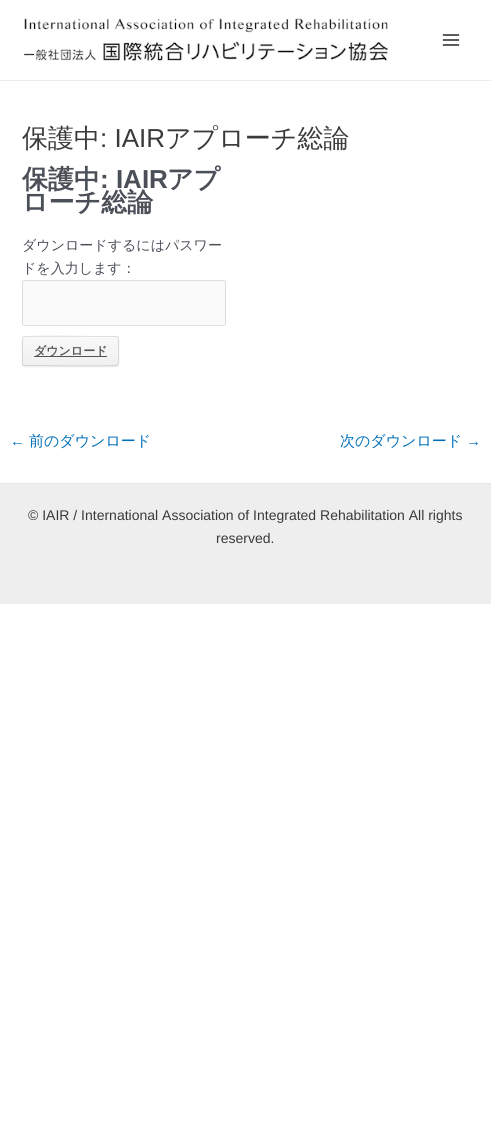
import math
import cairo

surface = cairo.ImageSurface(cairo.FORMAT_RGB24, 491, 1129)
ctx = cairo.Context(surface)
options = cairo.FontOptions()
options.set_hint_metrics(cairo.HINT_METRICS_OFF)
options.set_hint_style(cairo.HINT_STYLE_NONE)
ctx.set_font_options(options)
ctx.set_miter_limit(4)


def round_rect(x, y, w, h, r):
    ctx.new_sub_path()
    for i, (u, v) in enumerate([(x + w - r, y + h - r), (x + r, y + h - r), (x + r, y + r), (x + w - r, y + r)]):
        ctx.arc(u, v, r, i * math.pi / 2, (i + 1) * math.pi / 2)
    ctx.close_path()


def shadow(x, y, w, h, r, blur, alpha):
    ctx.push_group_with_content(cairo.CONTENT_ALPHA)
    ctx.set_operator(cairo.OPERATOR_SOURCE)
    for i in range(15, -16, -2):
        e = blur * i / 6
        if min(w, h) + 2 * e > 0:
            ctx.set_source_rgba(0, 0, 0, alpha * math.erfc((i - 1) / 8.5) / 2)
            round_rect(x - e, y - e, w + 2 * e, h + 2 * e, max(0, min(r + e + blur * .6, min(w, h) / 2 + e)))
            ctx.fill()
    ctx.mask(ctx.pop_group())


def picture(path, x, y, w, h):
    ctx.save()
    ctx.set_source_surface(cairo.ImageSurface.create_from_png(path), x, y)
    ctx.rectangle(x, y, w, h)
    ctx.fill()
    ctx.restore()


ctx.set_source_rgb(1, 1, 1)
ctx.paint()
ctx.set_source_rgb(0.918, 0.918, 0.918)
ctx.rectangle(0, 80, 491, 1)
ctx.fill()
picture("img1.png", 23, 18, 366, 43)
picture("img2.png", 442, 34, 18, 12)
ctx.select_font_face("WenQuanYi Zen Hei Medium")
ctx.set_font_size(26)
ctx.set_source_rgb(0.227, 0.227, 0.227)
ctx.move_to(22, 147)
ctx.show_text("保護中")
ctx.select_font_face("Liberation Sans")
ctx.move_to(100, 147)
ctx.show_text(": IAIR")
ctx.select_font_face("WenQuanYi Zen Hei Medium")
ctx.move_to(165, 147)
ctx.show_text("アプローチ総論")
ctx.select_font_face("WenQuanYi Zen Hei", cairo.FONT_SLANT_NORMAL, cairo.FONT_WEIGHT_BOLD)
ctx.set_source_rgb(0.294, 0.31, 0.345)
ctx.move_to(22, 188)
ctx.show_text("保護中")
ctx.select_font_face("Liberation Sans", cairo.FONT_SLANT_NORMAL, cairo.FONT_WEIGHT_BOLD)
ctx.move_to(100, 188)
ctx.show_text(": IAIR")
ctx.select_font_face("WenQuanYi Zen Hei", cairo.FONT_SLANT_NORMAL, cairo.FONT_WEIGHT_BOLD)
ctx.move_to(167, 188)
ctx.show_text("アプ")
ctx.move_to(22, 211)
ctx.show_text("ローチ総論")
ctx.select_font_face("WenQuanYi Zen Hei Medium")
ctx.set_font_size(14)
ctx.move_to(22, 250)
ctx.show_text("ダウンロードするにはパスワー")
ctx.move_to(22, 273)
ctx.show_text("ドを入力します：")
ctx.set_source_rgb(0.98, 0.98, 0.98)
round_rect(22.5, 280.5, 203, 45, 1.5)
ctx.fill_preserve()
ctx.set_source_rgb(0.867, 0.867, 0.867)
ctx.set_line_width(1)
ctx.stroke()
ctx.set_source_rgb(0.918, 0.918, 0.918)
shadow(22, 337, 97, 30, 3, 0.5, 1)
ctx.save()
round_rect(22, 336, 97, 30, 3)
ctx.clip()
gradient = cairo.LinearGradient(23, 309, 23, 337)
gradient.add_color_stop_rgba(0, 0.976, 0.976, 0.976, 1)
gradient.add_color_stop_rgba(1, 0.941, 0.941, 0.941, 1)
ctx.set_source(gradient)
ctx.rectangle(22, 336, 97, 1)
ctx.fill()
gradient = cairo.LinearGradient(23, 337, 23, 365)
gradient.add_color_stop_rgba(0, 0.976, 0.976, 0.976, 1)
gradient.add_color_stop_rgba(1, 0.941, 0.941, 0.941, 1)
ctx.set_source(gradient)
ctx.rectangle(22, 337, 97, 28)
ctx.fill()
gradient = cairo.LinearGradient(23, 365, 23, 393)
gradient.add_color_stop_rgba(0, 0.976, 0.976, 0.976, 1)
gradient.add_color_stop_rgba(1, 0.941, 0.941, 0.941, 1)
ctx.set_source(gradient)
ctx.rectangle(22, 365, 97, 1)
ctx.fill()
ctx.restore()
ctx.set_source_rgb(0.984, 0.984, 0.984)
ctx.new_path()
ctx.move_to(25, 338)
ctx.line_to(116, 338)
ctx.curve_to(117, 338, 118, 339, 118, 340)
ctx.curve_to(118, 339, 118, 337, 116, 337)
ctx.line_to(40, 337)
ctx.curve_to(38, 337, 23, 333, 23, 340)
ctx.curve_to(23, 339, 24, 338, 25, 338)
ctx.close_path()
ctx.fill()
ctx.new_path()
ctx.move_to(23, 337)
ctx.line_to(23.5, 337)
ctx.curve_to(25.5, 335.5, 93, 336.5, 101, 336.5)
ctx.line_to(116, 336.5)
ctx.line_to(118, 337)
ctx.set_source_rgb(0.871, 0.871, 0.871)
ctx.stroke()
ctx.new_path()
ctx.move_to(118, 337)
ctx.curve_to(118, 337.5, 118.5, 338.5, 118.5, 339)
ctx.line_to(118.5, 363)
ctx.curve_to(118.5, 363.5, 118, 364.5, 118, 365)
ctx.set_source_rgb(0.847, 0.847, 0.847)
ctx.stroke()
ctx.new_path()
ctx.move_to(118, 365)
ctx.line_to(117.5, 365)
ctx.curve_to(115.5, 366.5, 48, 365.5, 40, 365.5)
ctx.line_to(25, 365.5)
ctx.line_to(23, 365)
ctx.set_source_rgb(0.827, 0.827, 0.827)
ctx.stroke()
ctx.new_path()
ctx.move_to(23, 365)
ctx.curve_to(23, 364.5, 22.5, 363.5, 22.5, 363)
ctx.line_to(22.5, 339)
ctx.curve_to(22.5, 338.5, 23, 337.5, 23, 337)
ctx.set_source_rgb(0.847, 0.847, 0.847)
ctx.stroke()
ctx.set_source_rgb(0.333, 0.333, 0.333)
ctx.rectangle(34, 356, 73, 1)
ctx.fill()
ctx.select_font_face("WenQuanYi Zen Hei", cairo.FONT_SLANT_NORMAL, cairo.FONT_WEIGHT_BOLD)
ctx.set_font_size(12)
ctx.move_to(34, 355)
ctx.show_text("ダウンロード")
ctx.select_font_face("Liberation Sans")
ctx.set_font_size(15)
ctx.set_source_rgb(0.004, 0.439, 0.725)
ctx.move_to(10, 446)
ctx.show_text("←")
ctx.select_font_face("WenQuanYi Zen Hei Medium")
ctx.move_to(29, 446)
ctx.show_text("前のダウンロード")
ctx.move_to(340, 446)
ctx.show_text("次のダウンロード")
ctx.select_font_face("Liberation Sans")
ctx.move_to(466, 446)
ctx.show_text("→")
ctx.set_source_rgb(0.933, 0.933, 0.933)
ctx.rectangle(0, 484, 491, 120)
ctx.fill()
ctx.set_source_rgb(0.898, 0.898, 0.898)
ctx.rectangle(0, 483, 491, 1)
ctx.fill()
ctx.set_font_size(14)
ctx.set_source_rgb(0.227, 0.227, 0.227)
ctx.move_to(28, 520)
ctx.show_text("© IAIR / International Association of Integrated Rehabilitation All rights")
ctx.move_to(216, 543)
ctx.show_text("reserved.")
surface.write_to_png("page.png")
